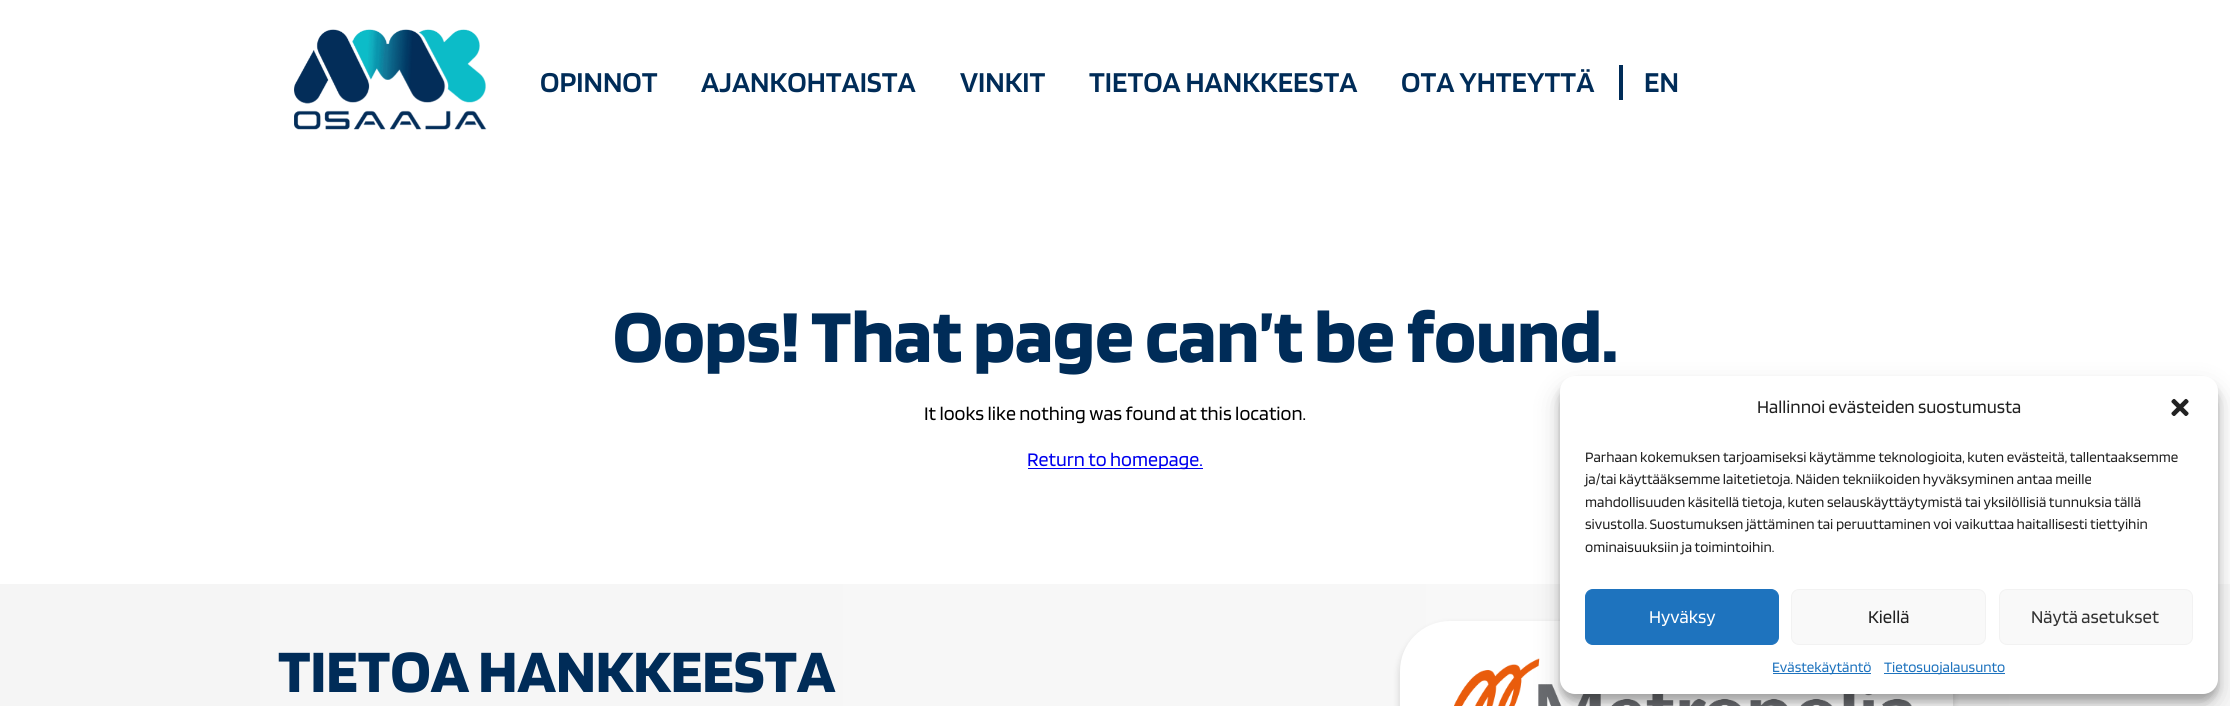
import math
import cairo

surface = cairo.ImageSurface(cairo.FORMAT_RGB24, 2230, 706)
ctx = cairo.Context(surface)
options = cairo.FontOptions()
options.set_hint_metrics(cairo.HINT_METRICS_OFF)
options.set_hint_style(cairo.HINT_STYLE_NONE)
ctx.set_font_options(options)
ctx.set_miter_limit(4)


def round_rect(x, y, w, h, r):
    ctx.new_sub_path()
    for i, (u, v) in enumerate([(x + w - r, y + h - r), (x + r, y + h - r), (x + r, y + r), (x + w - r, y + r)]):
        ctx.arc(u, v, r, i * math.pi / 2, (i + 1) * math.pi / 2)
    ctx.close_path()


def shadow(x, y, w, h, r, blur, alpha):
    ctx.push_group_with_content(cairo.CONTENT_ALPHA)
    ctx.set_operator(cairo.OPERATOR_SOURCE)
    for i in range(15, -16, -2):
        e = blur * i / 6
        if min(w, h) + 2 * e > 0:
            ctx.set_source_rgba(0, 0, 0, alpha * math.erfc((i - 1) / 8.5) / 2)
            round_rect(x - e, y - e, w + 2 * e, h + 2 * e, max(0, min(r + e + blur * .6, min(w, h) / 2 + e)))
            ctx.fill()
    ctx.mask(ctx.pop_group())


def picture(path, x, y, w, h):
    ctx.save()
    ctx.set_source_surface(cairo.ImageSurface.create_from_png(path), x, y)
    ctx.rectangle(x, y, w, h)
    ctx.fill()
    ctx.restore()


ctx.set_source_rgb(1, 1, 1)
ctx.paint()
picture("img1.png", 294, 29, 193, 101)
ctx.select_font_face("Blinker SemiBold")
ctx.set_font_size(30)
ctx.set_source_rgb(0, 0.173, 0.345)
ctx.move_to(540, 92)
ctx.show_text("OPINNOT")
ctx.move_to(701, 92)
ctx.show_text("AJANKOHTAISTA")
ctx.move_to(960, 92)
ctx.show_text("VINKIT")
ctx.move_to(1089, 92)
ctx.show_text("TIETOA HANKKEESTA")
ctx.move_to(1401, 92)
ctx.show_text("OTA YHTEYTTÄ")
ctx.rectangle(1619, 65, 4, 35)
ctx.fill()
ctx.move_to(1644, 92)
ctx.show_text("EN")
ctx.select_font_face("Blinker", cairo.FONT_SLANT_NORMAL, cairo.FONT_WEIGHT_BOLD)
ctx.set_font_size(77.5)
ctx.move_to(613, 362)
ctx.show_text("Oops! That page can’t be found.")
ctx.select_font_face("Blinker")
ctx.set_font_size(20)
ctx.set_source_rgb(0, 0, 0)
ctx.move_to(924, 420)
ctx.show_text("It looks like nothing was found at this location.")
ctx.set_source_rgb(0, 0, 0.933)
ctx.rectangle(1028, 468, 175, 1)
ctx.fill()
ctx.move_to(1027, 466)
ctx.show_text("Return to homepage.")
gradient = cairo.LinearGradient(0, 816, 2230, 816)
gradient.add_color_stop_rgba(0, 0.961, 0.961, 0.961, 1)
gradient.add_color_stop_rgba(1, 0.976, 0.976, 0.976, 1)
ctx.set_source(gradient)
ctx.rectangle(0, 584, 2230, 122)
ctx.fill()
ctx.select_font_face("Blinker", cairo.FONT_SLANT_NORMAL, cairo.FONT_WEIGHT_BOLD)
ctx.set_font_size(62.5)
ctx.set_source_rgb(0, 0.173, 0.345)
ctx.move_to(278, 692)
ctx.show_text("TIETOA HANKKEESTA")
ctx.set_source_rgb(0, 0, 0)
shadow(1400, 625, 553, 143, 50, 4, 0.16)
ctx.set_source_rgb(1, 1, 1)
round_rect(1400, 621, 553, 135, 50)
ctx.fill()
picture("img2.png", 1454, 658, 458, 48)
ctx.set_source_rgb(0, 0, 0)
shadow(1560, 384, 658, 317, 15, 4, 0.23)
shadow(1560, 389, 658, 317, 15, 12.5, 0.19)
ctx.set_source_rgb(1, 1, 1)
round_rect(1560, 376, 658, 318, 15)
ctx.fill()
ctx.select_font_face("Blinker")
ctx.set_font_size(18.75)
ctx.set_source_rgb(0.133, 0.133, 0.133)
ctx.move_to(1757, 413)
ctx.show_text("Hallinnoi evästeiden suostumusta")
picture("img3.png", 2171, 398, 18, 18)
ctx.set_font_size(15)
ctx.move_to(1585, 462)
ctx.show_text("Parhaan kokemuksen tarjoamiseksi käytämme teknologioita, kuten evästeitä, tallentaaksemme")
ctx.move_to(1585, 484)
ctx.show_text("ja/tai käyttääksemme laitetietoja. Näiden tekniikoiden hyväksyminen antaa meille")
ctx.move_to(1585, 507)
ctx.show_text("mahdollisuuden käsitellä tietoja, kuten selauskäyttäytymistä tai yksilöllisiä tunnuksia tällä")
ctx.move_to(1585, 529)
ctx.show_text("sivustolla. Suostumuksen jättäminen tai peruuttaminen voi vaikuttaa haitallisesti tiettyihin")
ctx.move_to(1585, 552)
ctx.show_text("ominaisuuksiin ja toimintoihin.")
ctx.set_source_rgb(0.118, 0.451, 0.745)
round_rect(1585.5, 589.5, 193, 55, 7.5)
ctx.fill_preserve()
ctx.set_line_width(1)
ctx.stroke()
ctx.set_font_size(18.75)
ctx.set_source_rgb(1, 1, 1)
ctx.move_to(1649, 623)
ctx.show_text("Hyväksy")
ctx.set_source_rgb(0.976, 0.976, 0.976)
round_rect(1791.5, 589.5, 194, 55, 7.5)
ctx.fill_preserve()
ctx.set_source_rgb(0.949, 0.949, 0.949)
ctx.stroke()
ctx.set_source_rgb(0.133, 0.133, 0.133)
ctx.move_to(1868, 623)
ctx.show_text("Kiellä")
ctx.set_source_rgb(0.976, 0.976, 0.976)
round_rect(1999.5, 589.5, 193, 55, 7.5)
ctx.fill_preserve()
ctx.set_source_rgb(0.949, 0.949, 0.949)
ctx.stroke()
ctx.set_source_rgb(0.2, 0.2, 0.2)
ctx.move_to(2031, 623)
ctx.show_text("Näytä asetukset")
ctx.set_source_rgb(0.118, 0.451, 0.745)
ctx.rectangle(1773, 673, 98, 1)
ctx.fill()
ctx.set_font_size(15)
ctx.move_to(1772, 672)
ctx.show_text("Evästekäytäntö")
ctx.rectangle(1884, 673, 121, 1)
ctx.fill()
ctx.move_to(1884, 672)
ctx.show_text("Tietosuojalausunto")
surface.write_to_png("page.png")
